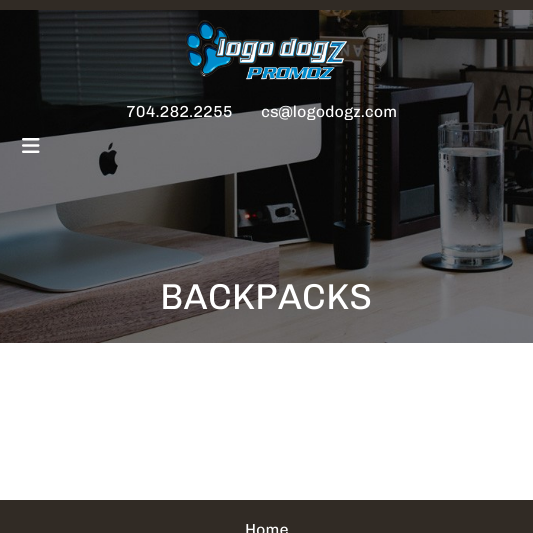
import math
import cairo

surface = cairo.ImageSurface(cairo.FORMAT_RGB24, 533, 533)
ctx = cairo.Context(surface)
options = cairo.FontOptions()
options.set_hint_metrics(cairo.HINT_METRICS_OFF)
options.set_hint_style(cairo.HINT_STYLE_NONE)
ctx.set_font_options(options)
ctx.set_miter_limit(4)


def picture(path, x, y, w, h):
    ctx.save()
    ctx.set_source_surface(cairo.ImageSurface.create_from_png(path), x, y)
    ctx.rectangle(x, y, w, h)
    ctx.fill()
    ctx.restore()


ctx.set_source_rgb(1, 1, 1)
ctx.paint()
ctx.set_source_rgb(0.192, 0.169, 0.145)
ctx.rectangle(0, 0, 533, 10)
ctx.fill()
picture("img3.png", 0, 10, 533, 333)
picture("img1.png", 185, 20, 163, 60)
ctx.select_font_face("Chivo Medium")
ctx.set_font_size(16)
ctx.set_source_rgb(1, 1, 1)
ctx.move_to(126, 117)
ctx.show_text("704.282.2255")
ctx.move_to(261, 117)
ctx.show_text("cs@logodogz.com")
picture("img2.png", 22, 138, 18, 15)
ctx.set_font_size(36)
ctx.move_to(160, 309)
ctx.show_text("BACKPACKS")
ctx.set_source_rgb(0.192, 0.169, 0.145)
ctx.rectangle(0, 500, 533, 33)
ctx.fill()
ctx.set_font_size(16)
ctx.set_source_rgb(1, 1, 1)
ctx.move_to(245, 535)
ctx.show_text("Home")
surface.write_to_png("page.png")
